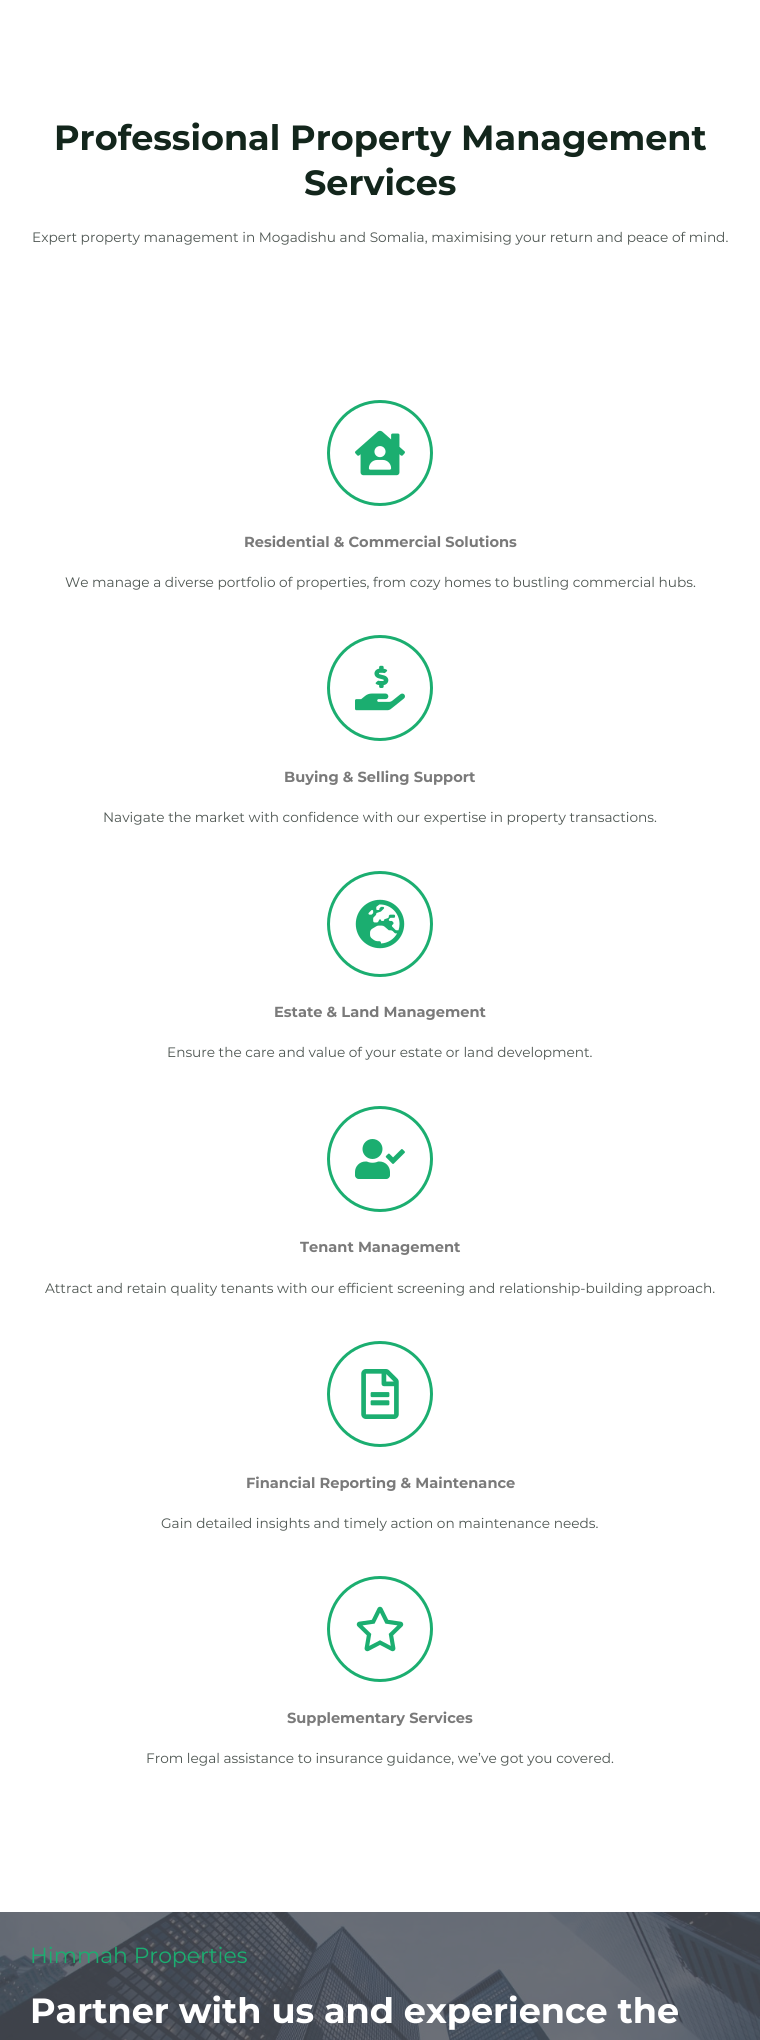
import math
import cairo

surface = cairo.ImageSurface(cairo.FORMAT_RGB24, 760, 2040)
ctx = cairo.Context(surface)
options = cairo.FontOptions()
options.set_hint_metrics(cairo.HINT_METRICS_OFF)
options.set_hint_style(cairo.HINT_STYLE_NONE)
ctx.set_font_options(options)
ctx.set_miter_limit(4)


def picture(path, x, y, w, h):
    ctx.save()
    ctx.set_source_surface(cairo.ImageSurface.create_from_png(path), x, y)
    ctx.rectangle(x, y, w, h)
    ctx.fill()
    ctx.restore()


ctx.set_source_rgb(1, 1, 1)
ctx.paint()
ctx.select_font_face("Montserrat", cairo.FONT_SLANT_NORMAL, cairo.FONT_WEIGHT_BOLD)
ctx.set_font_size(35)
ctx.set_source_rgb(0.078, 0.149, 0.11)
ctx.move_to(54, 150)
ctx.show_text("Professional Property Management")
ctx.move_to(304, 195)
ctx.show_text("Services")
ctx.select_font_face("Montserrat")
ctx.set_font_size(13.68)
ctx.set_source_rgb(0.306, 0.337, 0.322)
ctx.move_to(32, 242)
ctx.show_text("Expert property management in Mogadishu and Somalia, maximising your return and peace of mind.")
ctx.new_path()
ctx.arc(380, 453, 51.5, 0, 2 * math.pi)
ctx.set_source_rgb(0.106, 0.682, 0.439)
ctx.set_line_width(3)
ctx.stroke()
picture("img1.png", 355, 430, 50, 46)
ctx.select_font_face("Montserrat", cairo.FONT_SLANT_NORMAL, cairo.FONT_WEIGHT_BOLD)
ctx.set_font_size(14.6)
ctx.set_source_rgb(0.478, 0.478, 0.478)
ctx.move_to(244, 547)
ctx.show_text("Residential & Commercial Solutions")
ctx.select_font_face("Montserrat")
ctx.set_font_size(13.68)
ctx.set_source_rgb(0.306, 0.337, 0.322)
ctx.move_to(65, 587)
ctx.show_text("We manage a diverse portfolio of properties, from cozy homes to bustling commercial hubs.")
ctx.new_path()
ctx.arc(380, 688, 51.5, 0, 2 * math.pi)
ctx.set_source_rgb(0.106, 0.682, 0.439)
ctx.stroke()
picture("img2.png", 355, 665, 50, 46)
ctx.select_font_face("Montserrat", cairo.FONT_SLANT_NORMAL, cairo.FONT_WEIGHT_BOLD)
ctx.set_font_size(14.6)
ctx.set_source_rgb(0.478, 0.478, 0.478)
ctx.move_to(284, 782)
ctx.show_text("Buying & Selling Support")
ctx.select_font_face("Montserrat")
ctx.set_font_size(13.68)
ctx.set_source_rgb(0.306, 0.337, 0.322)
ctx.move_to(103, 822)
ctx.show_text("Navigate the market with confidence with our expertise in property transactions.")
ctx.new_path()
ctx.arc(380, 924, 51.5, 0, 2 * math.pi)
ctx.set_source_rgb(0.106, 0.682, 0.439)
ctx.stroke()
picture("img3.png", 355, 899, 50, 50)
ctx.select_font_face("Montserrat", cairo.FONT_SLANT_NORMAL, cairo.FONT_WEIGHT_BOLD)
ctx.set_font_size(14.6)
ctx.set_source_rgb(0.478, 0.478, 0.478)
ctx.move_to(274, 1017)
ctx.show_text("Estate & Land Management")
ctx.select_font_face("Montserrat")
ctx.set_font_size(13.68)
ctx.set_source_rgb(0.306, 0.337, 0.322)
ctx.move_to(167, 1057)
ctx.show_text("Ensure the care and value of your estate or land development.")
ctx.new_path()
ctx.arc(380, 1159, 51.5, 0, 2 * math.pi)
ctx.set_source_rgb(0.106, 0.682, 0.439)
ctx.stroke()
picture("img4.png", 355, 1139, 50, 40)
ctx.select_font_face("Montserrat", cairo.FONT_SLANT_NORMAL, cairo.FONT_WEIGHT_BOLD)
ctx.set_font_size(14.6)
ctx.set_source_rgb(0.478, 0.478, 0.478)
ctx.move_to(300, 1252)
ctx.show_text("Tenant Management")
ctx.select_font_face("Montserrat")
ctx.set_font_size(13.68)
ctx.set_source_rgb(0.306, 0.337, 0.322)
ctx.move_to(45, 1293)
ctx.show_text("Attract and retain quality tenants with our efficient screening and relationship-building approach.")
ctx.new_path()
ctx.arc(380, 1394, 51.5, 0, 2 * math.pi)
ctx.set_source_rgb(0.106, 0.682, 0.439)
ctx.stroke()
picture("img5.png", 361, 1369, 38, 50)
ctx.select_font_face("Montserrat", cairo.FONT_SLANT_NORMAL, cairo.FONT_WEIGHT_BOLD)
ctx.set_font_size(14.6)
ctx.set_source_rgb(0.478, 0.478, 0.478)
ctx.move_to(246, 1488)
ctx.show_text("Financial Reporting & Maintenance")
ctx.select_font_face("Montserrat")
ctx.set_font_size(13.68)
ctx.set_source_rgb(0.306, 0.337, 0.322)
ctx.move_to(161, 1528)
ctx.show_text("Gain detailed insights and timely action on maintenance needs.")
ctx.new_path()
ctx.arc(380, 1629, 51.5, 0, 2 * math.pi)
ctx.set_source_rgb(0.106, 0.682, 0.439)
ctx.stroke()
picture("img6.png", 356, 1606, 48, 46)
ctx.select_font_face("Montserrat", cairo.FONT_SLANT_NORMAL, cairo.FONT_WEIGHT_BOLD)
ctx.set_font_size(14.6)
ctx.set_source_rgb(0.478, 0.478, 0.478)
ctx.move_to(287, 1723)
ctx.show_text("Supplementary Services")
ctx.select_font_face("Montserrat")
ctx.set_font_size(13.68)
ctx.set_source_rgb(0.306, 0.337, 0.322)
ctx.move_to(146, 1763)
ctx.show_text("From legal assistance to insurance guidance, we’ve got you covered.")
picture("img7.png", 0, 1912, 760, 128)
ctx.set_font_size(21.9)
ctx.set_source_rgb(0.106, 0.682, 0.439)
ctx.move_to(30, 1963)
ctx.show_text("Himmah Properties")
ctx.select_font_face("Montserrat", cairo.FONT_SLANT_NORMAL, cairo.FONT_WEIGHT_BOLD)
ctx.set_font_size(35)
ctx.set_source_rgb(1, 1, 1)
ctx.move_to(30, 2023)
ctx.show_text("Partner with us and experience the")
surface.write_to_png("page.png")
